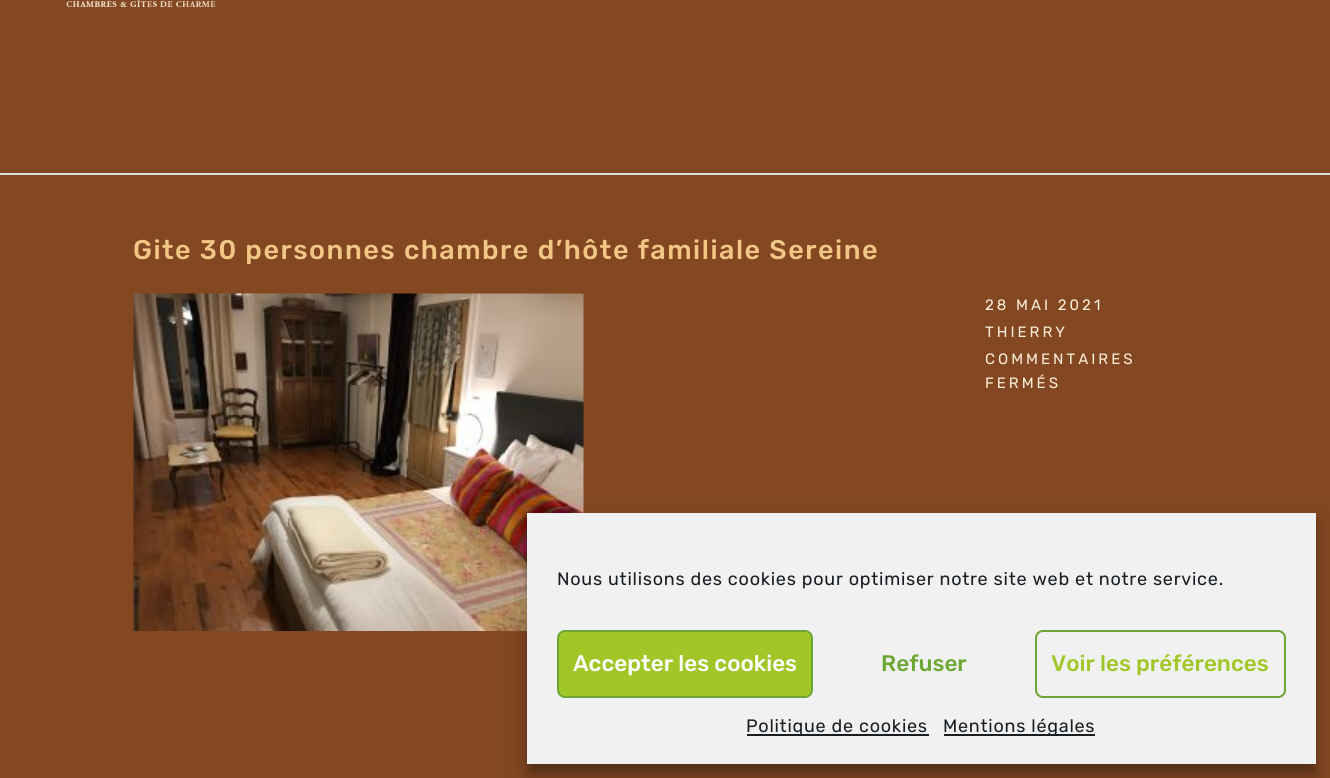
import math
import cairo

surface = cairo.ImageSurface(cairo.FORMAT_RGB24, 1330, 778)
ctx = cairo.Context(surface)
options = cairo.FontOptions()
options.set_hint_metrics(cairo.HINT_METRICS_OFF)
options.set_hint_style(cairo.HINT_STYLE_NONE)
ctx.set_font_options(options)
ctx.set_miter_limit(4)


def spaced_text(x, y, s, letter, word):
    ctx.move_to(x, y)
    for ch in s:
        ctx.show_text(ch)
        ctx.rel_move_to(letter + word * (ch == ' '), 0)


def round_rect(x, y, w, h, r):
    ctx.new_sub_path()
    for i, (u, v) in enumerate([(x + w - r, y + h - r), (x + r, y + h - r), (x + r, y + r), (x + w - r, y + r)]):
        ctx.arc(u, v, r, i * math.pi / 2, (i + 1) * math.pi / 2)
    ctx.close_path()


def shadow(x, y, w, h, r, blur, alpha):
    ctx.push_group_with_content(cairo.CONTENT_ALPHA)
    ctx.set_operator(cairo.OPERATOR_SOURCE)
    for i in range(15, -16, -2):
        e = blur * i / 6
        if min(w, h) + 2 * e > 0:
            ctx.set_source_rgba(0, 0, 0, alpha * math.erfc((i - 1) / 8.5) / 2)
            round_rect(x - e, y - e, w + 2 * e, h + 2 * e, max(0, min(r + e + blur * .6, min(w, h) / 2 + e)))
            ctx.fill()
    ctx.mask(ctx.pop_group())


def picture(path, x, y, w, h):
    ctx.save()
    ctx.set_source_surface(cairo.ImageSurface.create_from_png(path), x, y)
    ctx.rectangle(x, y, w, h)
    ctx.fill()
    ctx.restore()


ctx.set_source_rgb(0.514, 0.282, 0.133)
ctx.paint()
ctx.set_source_rgb(0.867, 0.867, 0.867)
ctx.rectangle(0, 173, 1330, 2)
ctx.fill()
picture("img1.png", 66, 0, 150, 7)
ctx.select_font_face("Rubik Light")
ctx.set_font_size(27)
ctx.set_source_rgb(0.949, 0.78, 0.525)
spaced_text(133, 259, "Gite 30 personnes chambre d’hôte familiale Sereine", 1.5, 0)
picture("img2.png", 133, 293, 451, 338)
ctx.select_font_face("Rubik")
ctx.set_font_size(15)
ctx.set_source_rgb(0.988, 0.929, 0.847)
spaced_text(985, 310, "28 MAI 2021", 3, 0)
spaced_text(985, 337, "THIERRY", 3, 0)
spaced_text(985, 364, "COMMENTAIRES", 3, 0)
spaced_text(985, 388, "FERMÉS", 3, 0)
ctx.set_source_rgb(0, 0, 0)
shadow(527, 522, 789, 251, 0, 4.5, 0.23)
shadow(527, 528, 789, 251, 0, 15, 0.19)
ctx.set_source_rgb(0.945, 0.945, 0.945)
ctx.rectangle(527, 513, 789, 251)
ctx.fill()
ctx.set_font_size(18)
ctx.set_source_rgb(0.098, 0.118, 0.137)
spaced_text(557, 585, "Nous utilisons des cookies pour optimiser notre site web et notre service.", 0.75, 0)
ctx.set_source_rgb(0.631, 0.776, 0.153)
round_rect(558, 631, 254, 66, 7)
ctx.fill_preserve()
ctx.set_source_rgb(0.42, 0.655, 0.208)
ctx.stroke()
ctx.select_font_face("Rubik Light")
ctx.set_font_size(22.5)
ctx.set_source_rgb(1, 1, 1)
ctx.move_to(573, 671)
ctx.show_text("Accepter les cookies")
ctx.set_source_rgb(0.42, 0.655, 0.208)
ctx.move_to(881, 671)
ctx.show_text("Refuser")
round_rect(1036, 631, 249, 66, 7)
ctx.stroke()
ctx.set_source_rgb(0.631, 0.776, 0.153)
ctx.move_to(1051, 671)
ctx.show_text("Voir les préférences")
ctx.set_source_rgb(0.098, 0.118, 0.137)
ctx.rectangle(747, 734, 182, 2)
ctx.fill()
ctx.select_font_face("Rubik")
ctx.set_font_size(18)
spaced_text(746, 732, "Politique de cookies", 0.75, 0)
ctx.rectangle(944, 734, 151, 2)
ctx.fill()
spaced_text(943, 732, "Mentions légales", 0.75, 0)
surface.write_to_png("page.png")
